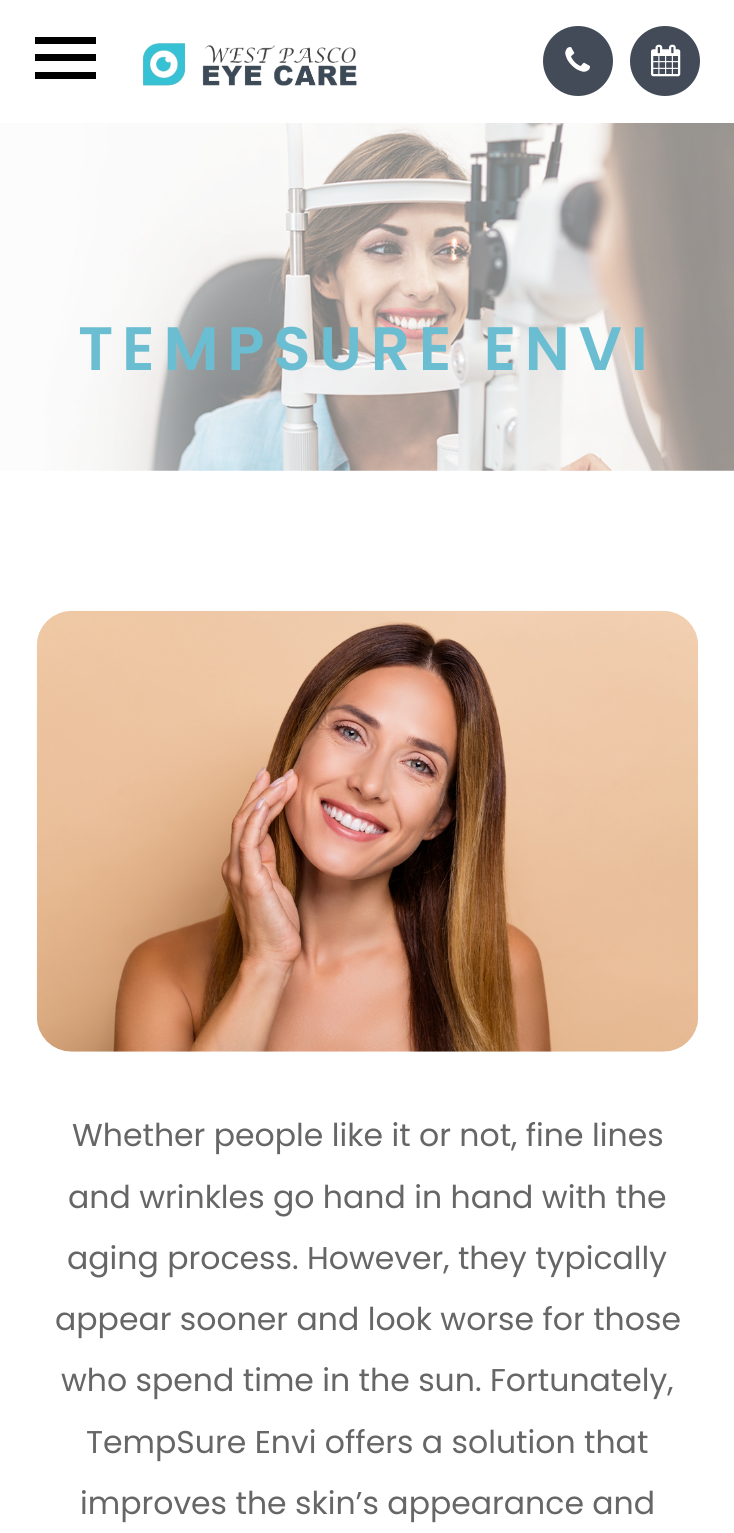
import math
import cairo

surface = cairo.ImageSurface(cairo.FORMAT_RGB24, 734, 1533)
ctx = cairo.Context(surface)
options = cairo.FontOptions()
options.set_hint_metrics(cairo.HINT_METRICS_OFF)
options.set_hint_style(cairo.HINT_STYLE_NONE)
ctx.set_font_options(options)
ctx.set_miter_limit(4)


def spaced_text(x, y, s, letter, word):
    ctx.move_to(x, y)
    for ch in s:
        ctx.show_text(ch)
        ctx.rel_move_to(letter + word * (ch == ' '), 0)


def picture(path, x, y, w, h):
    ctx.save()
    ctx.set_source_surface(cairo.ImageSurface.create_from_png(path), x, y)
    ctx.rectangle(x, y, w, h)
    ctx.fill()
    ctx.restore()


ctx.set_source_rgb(1, 1, 1)
ctx.paint()
ctx.set_source_rgb(0, 0, 0)
ctx.rectangle(35, 72, 61, 7)
ctx.fill()
ctx.rectangle(35, 37, 61, 7)
ctx.fill()
ctx.rectangle(35, 54, 61, 7)
ctx.fill()
picture("img1.png", 143, 43, 214, 43)
ctx.set_source_rgb(0.259, 0.294, 0.341)
ctx.arc(578, 61, 35, 0, 2 * math.pi)
ctx.fill()
picture("img2.png", 565, 47, 25, 25)
ctx.arc(665, 61, 35, 0, 2 * math.pi)
ctx.fill()
picture("img3.png", 651, 44, 30, 33)
picture("img4.png", 0, 123, 734, 348)
ctx.select_font_face("Poppins SemiBold")
ctx.set_font_size(61.25)
ctx.set_source_rgb(0.42, 0.745, 0.82)
spaced_text(78, 370, "TEMPSURE ENVI", 8.75, 0)
picture("img5.png", 36, 610, 663, 442)
ctx.select_font_face("Poppins")
ctx.set_font_size(31.5)
ctx.set_source_rgb(0.4, 0.4, 0.4)
ctx.move_to(72, 1146)
ctx.show_text("Whether people like it or not, fine lines")
ctx.move_to(68, 1208)
ctx.show_text("and wrinkles go hand in hand with the")
ctx.move_to(67, 1269)
ctx.show_text("aging process. However, they typically")
ctx.move_to(55, 1330)
ctx.show_text("appear sooner and look worse for those")
ctx.move_to(61, 1391)
ctx.show_text("who spend time in the sun. Fortunately,")
ctx.move_to(86, 1453)
ctx.show_text("TempSure Envi offers a solution that")
ctx.move_to(80, 1514)
ctx.show_text("improves the skin’s appearance and")
surface.write_to_png("page.png")
